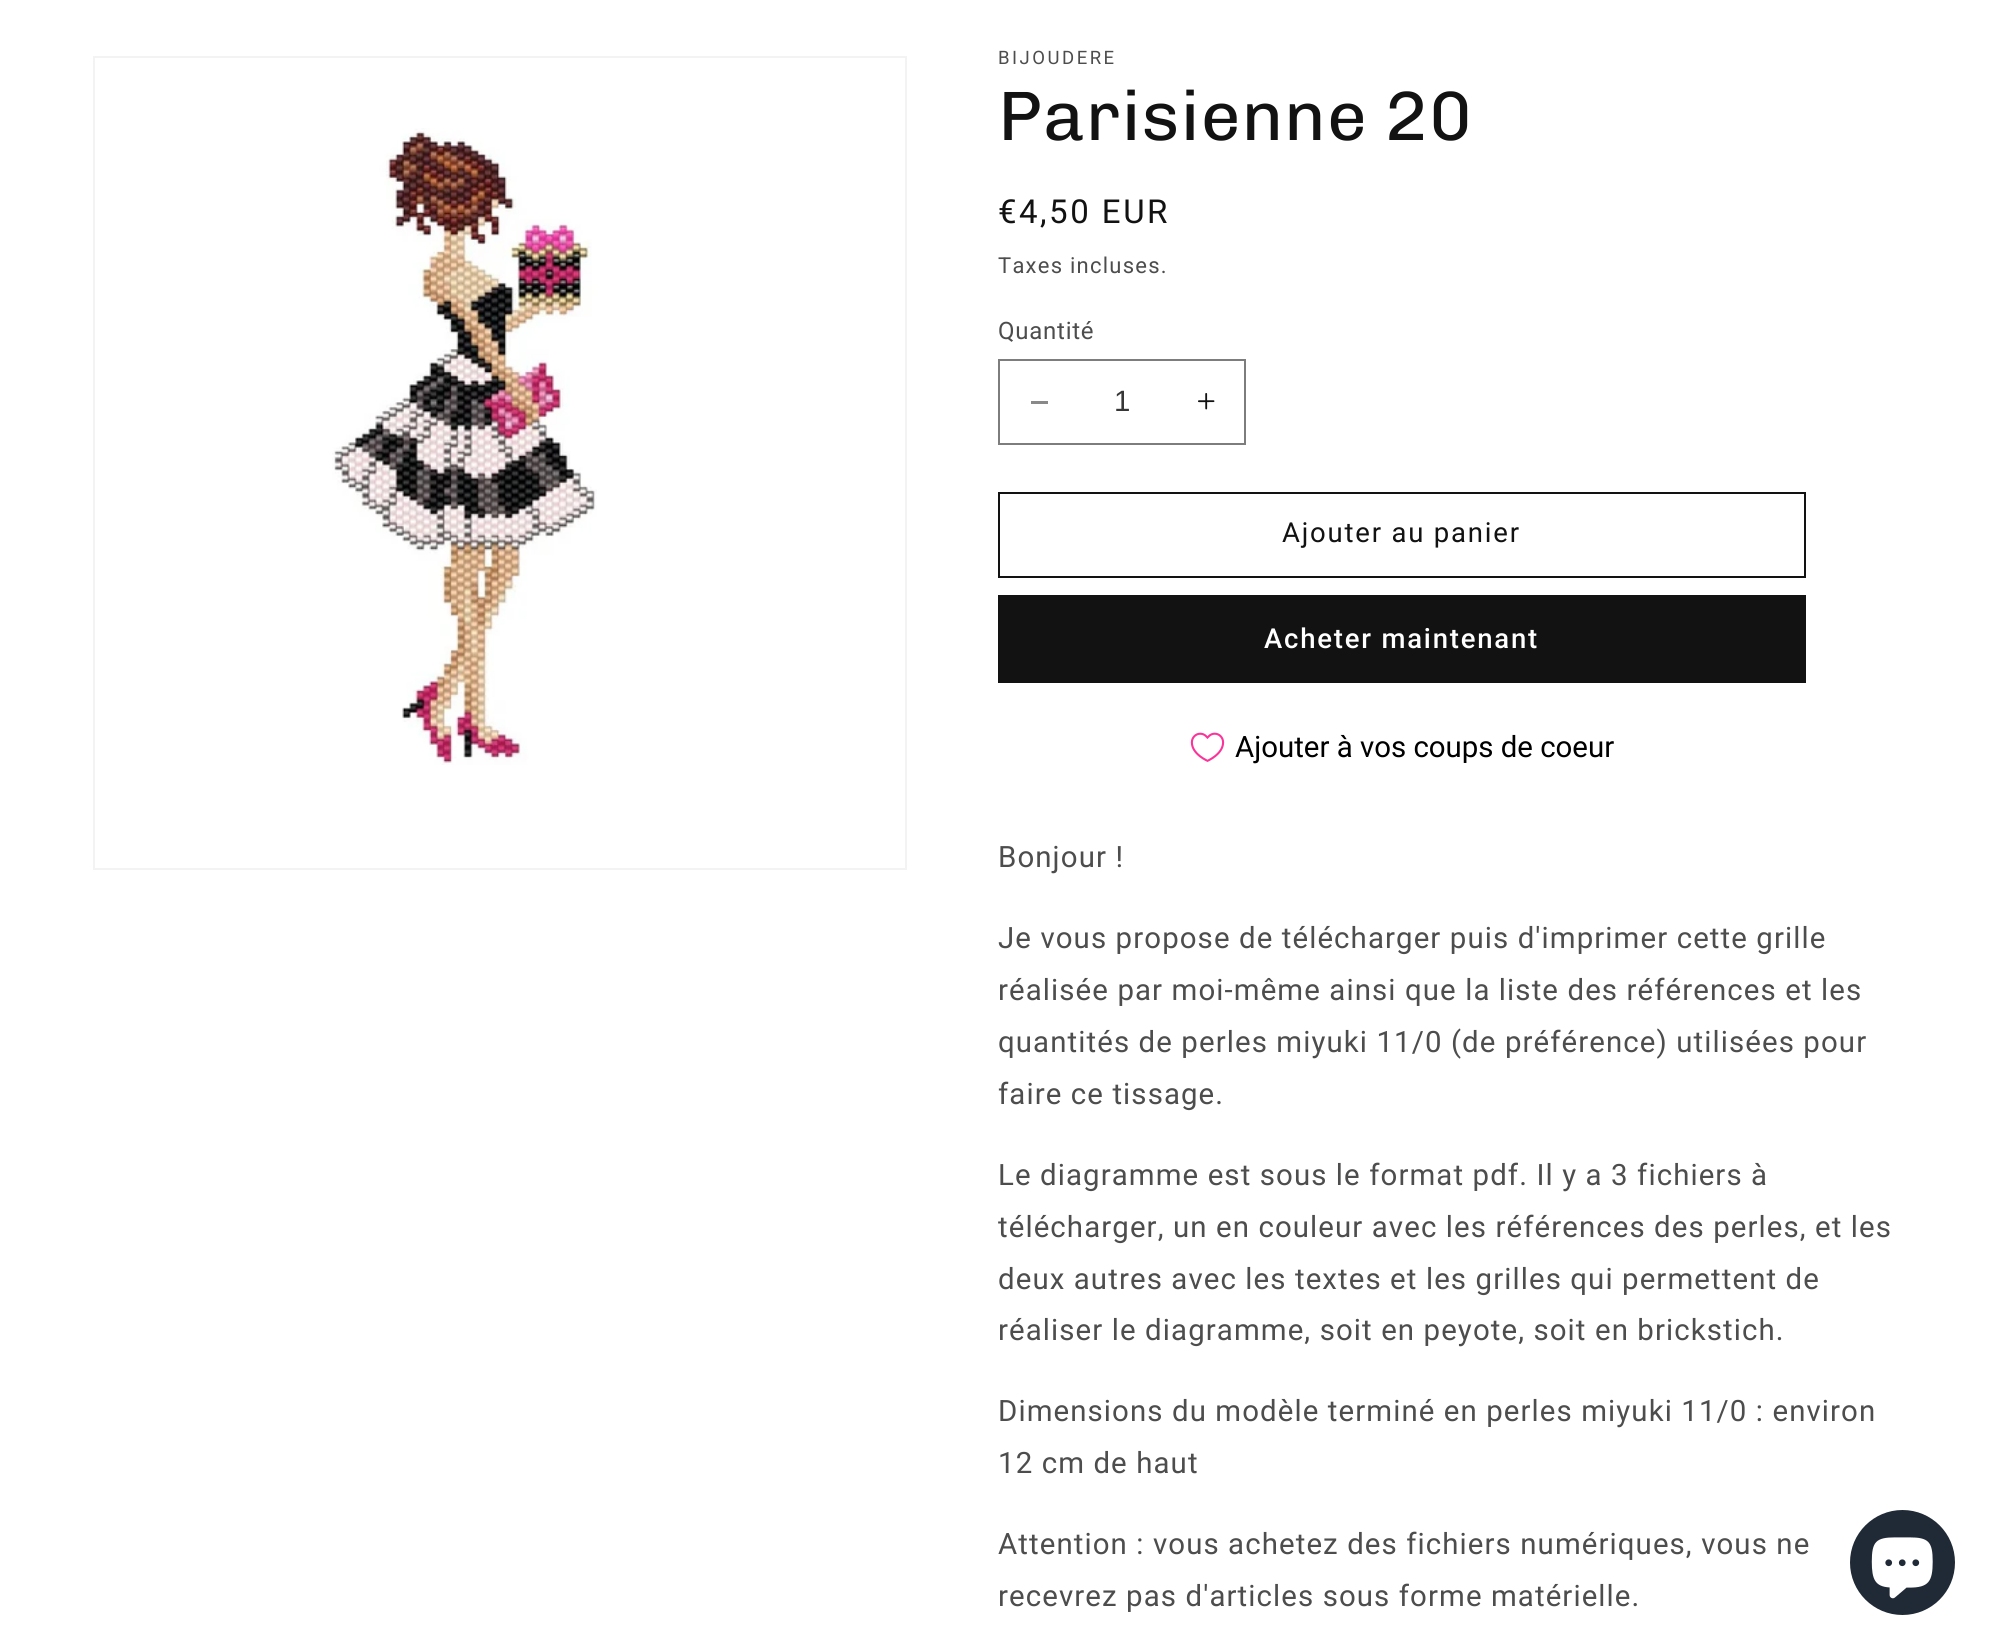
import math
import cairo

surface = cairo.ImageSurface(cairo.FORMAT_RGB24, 1992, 1651)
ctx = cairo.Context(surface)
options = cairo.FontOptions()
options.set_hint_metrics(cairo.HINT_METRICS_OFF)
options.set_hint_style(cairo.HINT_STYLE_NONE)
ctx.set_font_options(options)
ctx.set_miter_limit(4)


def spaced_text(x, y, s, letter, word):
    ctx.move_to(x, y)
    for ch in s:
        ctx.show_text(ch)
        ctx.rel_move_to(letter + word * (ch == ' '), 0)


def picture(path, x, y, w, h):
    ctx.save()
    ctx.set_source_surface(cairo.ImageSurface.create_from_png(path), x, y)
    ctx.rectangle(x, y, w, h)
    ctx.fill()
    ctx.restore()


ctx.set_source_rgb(1, 1, 1)
ctx.paint()
ctx.rectangle(94, 57, 812, 812)
ctx.set_source_rgb(0.953, 0.953, 0.953)
ctx.stroke()
picture("img1.png", 332, 128, 265, 637)
ctx.select_font_face("Roboto")
ctx.set_font_size(18.5)
ctx.set_source_rgb(0.302, 0.302, 0.302)
spaced_text(998, 64, "BIJOUDERE", 2.5, 0)
ctx.select_font_face("Chivo")
ctx.set_font_size(70)
ctx.set_source_rgb(0.071, 0.071, 0.071)
spaced_text(998, 140, "Parisienne 20", 1, 0)
ctx.select_font_face("Roboto")
ctx.set_font_size(33)
spaced_text(998, 223, "€4,50 EUR", 2.5, 0)
ctx.set_font_size(22)
ctx.set_source_rgb(0.302, 0.302, 0.302)
spaced_text(998, 273, "Taxes incluses.", 1.25, 0)
ctx.set_font_size(24)
spaced_text(998, 339, "Quantité", 0.75, 0)
ctx.set_source_rgb(0.537, 0.537, 0.537)
ctx.rectangle(1031, 401, 17, 3)
ctx.fill()
picture("img2.png", 1198, 393, 17, 17)
ctx.rectangle(999, 360, 246, 84)
ctx.set_source_rgb(0.49, 0.49, 0.49)
ctx.stroke()
ctx.select_font_face("Liberation Sans")
ctx.set_font_size(29.4)
ctx.set_source_rgb(0.212, 0.212, 0.212)
ctx.move_to(1114, 411)
ctx.show_text("1")
ctx.rectangle(999, 493, 806, 84)
ctx.set_source_rgb(0.071, 0.071, 0.071)
ctx.stroke()
ctx.select_font_face("Roboto")
ctx.set_font_size(27.5)
spaced_text(1282, 542, "Ajouter au panier", 1.8, 0)
ctx.rectangle(998, 595, 808, 88)
ctx.fill()
ctx.select_font_face("Roboto Medium")
ctx.set_source_rgb(1, 1, 1)
spaced_text(1264, 648, "Acheter maintenant", 1.8, 0)
picture("img3.png", 1190, 732, 35, 30)
ctx.select_font_face("Roboto")
ctx.set_font_size(29.4)
ctx.set_source_rgb(0, 0, 0)
ctx.move_to(1235, 757)
ctx.show_text("Ajouter à vos coups de coeur")
ctx.set_source_rgb(0.302, 0.302, 0.302)
spaced_text(998, 867, "Bonjour !", 1.1, 0)
spaced_text(998, 948, "Je vous propose de télécharger puis d'imprimer cette grille", 1.1, 0)
spaced_text(998, 1000, "réalisée par moi-même ainsi que la liste des références et les", 1.1, 0)
spaced_text(998, 1052, "quantités de perles miyuki 11/0 (de préférence) utilisées pour", 1.1, 0)
spaced_text(998, 1104, "faire ce tissage.", 1.1, 0)
spaced_text(998, 1185, "Le diagramme est sous le format pdf. Il y a 3 fichiers à", 1.1, 0)
spaced_text(998, 1237, "télécharger, un en couleur avec les références des perles, et les", 1.1, 0)
spaced_text(998, 1289, "deux autres avec les textes et les grilles qui permettent de", 1.1, 0)
spaced_text(998, 1340, "réaliser le diagramme, soit en peyote, soit en brickstich.", 1.1, 0)
spaced_text(998, 1421, "Dimensions du modèle terminé en perles miyuki 11/0 : environ", 1.1, 0)
spaced_text(998, 1473, "12 cm de haut", 1.1, 0)
spaced_text(998, 1554, "Attention : vous achetez des fichiers numériques, vous ne", 1.1, 0)
spaced_text(998, 1606, "recevrez pas d'articles sous forme matérielle.", 1.1, 0)
ctx.set_source_rgb(0.125, 0.165, 0.212)
ctx.new_path()
ctx.arc(1902.5, 1562.5, 52.5, 0, 2 * math.pi)
ctx.fill()
picture("img4.png", 1871, 1537, 62, 62)
surface.write_to_png("page.png")
